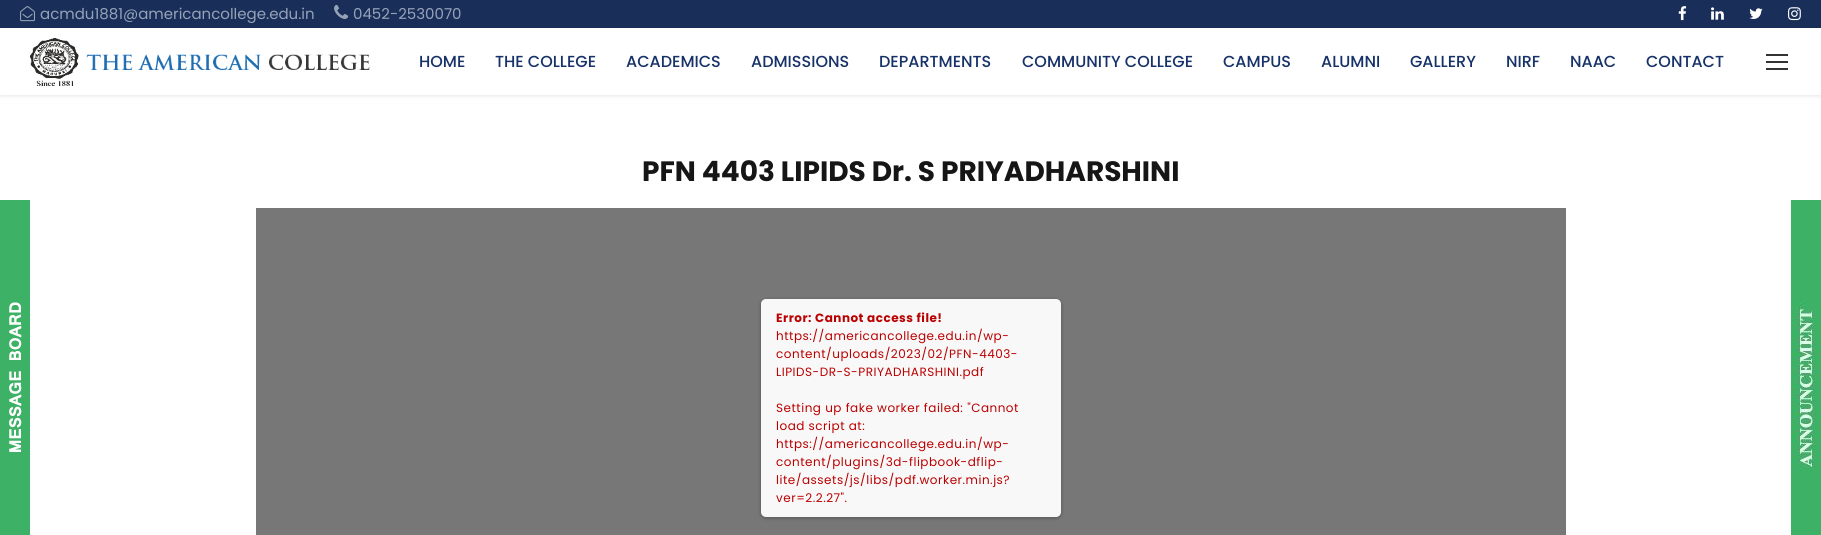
import math
import cairo

surface = cairo.ImageSurface(cairo.FORMAT_RGB24, 1821, 535)
ctx = cairo.Context(surface)
options = cairo.FontOptions()
options.set_hint_metrics(cairo.HINT_METRICS_OFF)
options.set_hint_style(cairo.HINT_STYLE_NONE)
ctx.set_font_options(options)
ctx.set_miter_limit(4)


def spaced_text(x, y, s, letter, word):
    ctx.move_to(x, y)
    for ch in s:
        ctx.show_text(ch)
        ctx.rel_move_to(letter + word * (ch == ' '), 0)


def round_rect(x, y, w, h, r):
    ctx.new_sub_path()
    for i, (u, v) in enumerate([(x + w - r, y + h - r), (x + r, y + h - r), (x + r, y + r), (x + w - r, y + r)]):
        ctx.arc(u, v, r, i * math.pi / 2, (i + 1) * math.pi / 2)
    ctx.close_path()


def shadow(x, y, w, h, r, blur, alpha):
    ctx.push_group_with_content(cairo.CONTENT_ALPHA)
    ctx.set_operator(cairo.OPERATOR_SOURCE)
    for i in range(15, -16, -2):
        e = blur * i / 6
        if min(w, h) + 2 * e > 0:
            ctx.set_source_rgba(0, 0, 0, alpha * math.erfc((i - 1) / 8.5) / 2)
            round_rect(x - e, y - e, w + 2 * e, h + 2 * e, max(0, min(r + e + blur * .6, min(w, h) / 2 + e)))
            ctx.fill()
    ctx.mask(ctx.pop_group())


def picture(path, x, y, w, h):
    ctx.save()
    ctx.set_source_surface(cairo.ImageSurface.create_from_png(path), x, y)
    ctx.rectangle(x, y, w, h)
    ctx.fill()
    ctx.restore()


ctx.set_source_rgb(1, 1, 1)
ctx.paint()
picture("img1.png", 0, 200, 30, 335)
ctx.set_source_rgb(0.098, 0.184, 0.349)
ctx.rectangle(0, 0, 1821, 28)
ctx.fill()
picture("img2.png", 20, 6, 15, 16)
ctx.select_font_face("Poppins")
ctx.set_font_size(15)
ctx.set_source_rgb(0.588, 0.635, 0.722)
ctx.move_to(40, 19)
ctx.show_text("acmdu1881@americancollege.edu.in")
picture("img3.png", 334, 4, 15, 15)
ctx.move_to(353, 19)
ctx.show_text("0452-2530070")
picture("img4.png", 1678, 6, 9, 15)
picture("img5.png", 1711, 7, 13, 13)
picture("img6.png", 1749, 8, 14, 11)
picture("img7.png", 1788, 7, 13, 14)
ctx.save()
ctx.set_fill_rule(cairo.FILL_RULE_EVEN_ODD)
ctx.new_path()
ctx.move_to(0, 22)
ctx.line_to(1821, 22)
ctx.line_to(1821, 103)
ctx.line_to(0, 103)
ctx.close_path()
ctx.move_to(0, 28)
ctx.line_to(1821, 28)
ctx.line_to(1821, 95)
ctx.line_to(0, 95)
ctx.close_path()
ctx.clip()
ctx.set_source_rgb(0, 0, 0)
shadow(0, 29, 1821, 67, 0, 2, 0.1)
ctx.restore()
picture("img8.png", 30, 38, 340, 48)
ctx.select_font_face("Poppins Medium")
ctx.set_font_size(16)
ctx.set_source_rgb(0.086, 0.196, 0.412)
ctx.move_to(419, 67)
ctx.show_text("HOME")
ctx.move_to(495, 67)
ctx.show_text("THE COLLEGE")
ctx.move_to(626, 67)
ctx.show_text("ACADEMICS")
ctx.move_to(751, 67)
ctx.show_text("ADMISSIONS")
ctx.move_to(879, 67)
ctx.show_text("DEPARTMENTS")
ctx.move_to(1022, 67)
ctx.show_text("COMMUNITY COLLEGE")
ctx.move_to(1223, 67)
ctx.show_text("CAMPUS")
ctx.move_to(1321, 67)
ctx.show_text("ALUMNI")
ctx.move_to(1410, 67)
ctx.show_text("GALLERY")
ctx.move_to(1506, 67)
ctx.show_text("NIRF")
ctx.move_to(1570, 67)
ctx.show_text("NAAC")
ctx.move_to(1646, 67)
ctx.show_text("CONTACT")
ctx.set_source_rgb(0.2, 0.2, 0.2)
ctx.rectangle(1766, 54, 22, 2)
ctx.fill()
ctx.rectangle(1766, 61, 22, 2)
ctx.fill()
ctx.rectangle(1766, 68, 22, 2)
ctx.fill()
ctx.select_font_face("Poppins", cairo.FONT_SLANT_NORMAL, cairo.FONT_WEIGHT_BOLD)
ctx.set_font_size(28)
ctx.set_source_rgb(0.086, 0.086, 0.086)
ctx.move_to(642, 181)
ctx.show_text("PFN 4403 LIPIDS Dr. S PRIYADHARSHINI")
ctx.set_source_rgb(0.467, 0.467, 0.467)
ctx.rectangle(256, 208, 1310, 327)
ctx.fill()
ctx.set_source_rgb(0, 0, 0)
shadow(761, 300, 300, 218, 5, 2, 0.3)
ctx.set_source_rgb(0.969, 0.969, 0.969)
round_rect(761, 299, 300, 218, 5)
ctx.fill()
ctx.set_font_size(12)
ctx.set_source_rgb(0.733, 0, 0)
spaced_text(776, 322, "Error: Cannot access file!", 0.5, 0)
ctx.select_font_face("Poppins")
spaced_text(776, 340, "https://americancollege.edu.in/wp-", 0.5, 0)
spaced_text(776, 358, "content/uploads/2023/02/PFN-4403-", 0.5, 0)
spaced_text(776, 376, "LIPIDS-DR-S-PRIYADHARSHINI.pdf", 0.5, 0)
spaced_text(776, 412, "Setting up fake worker failed: \"Cannot", 0.5, 0)
spaced_text(776, 430, "load script at:", 0.5, 0)
spaced_text(776, 448, "https://americancollege.edu.in/wp-", 0.5, 0)
spaced_text(776, 466, "content/plugins/3d-flipbook-dflip-", 0.5, 0)
spaced_text(776, 484, "lite/assets/js/libs/pdf.worker.min.js?", 0.5, 0)
spaced_text(776, 502, "ver=2.2.27\".", 0.5, 0)
picture("img9.png", 1791, 200, 30, 335)
surface.write_to_png("page.png")
